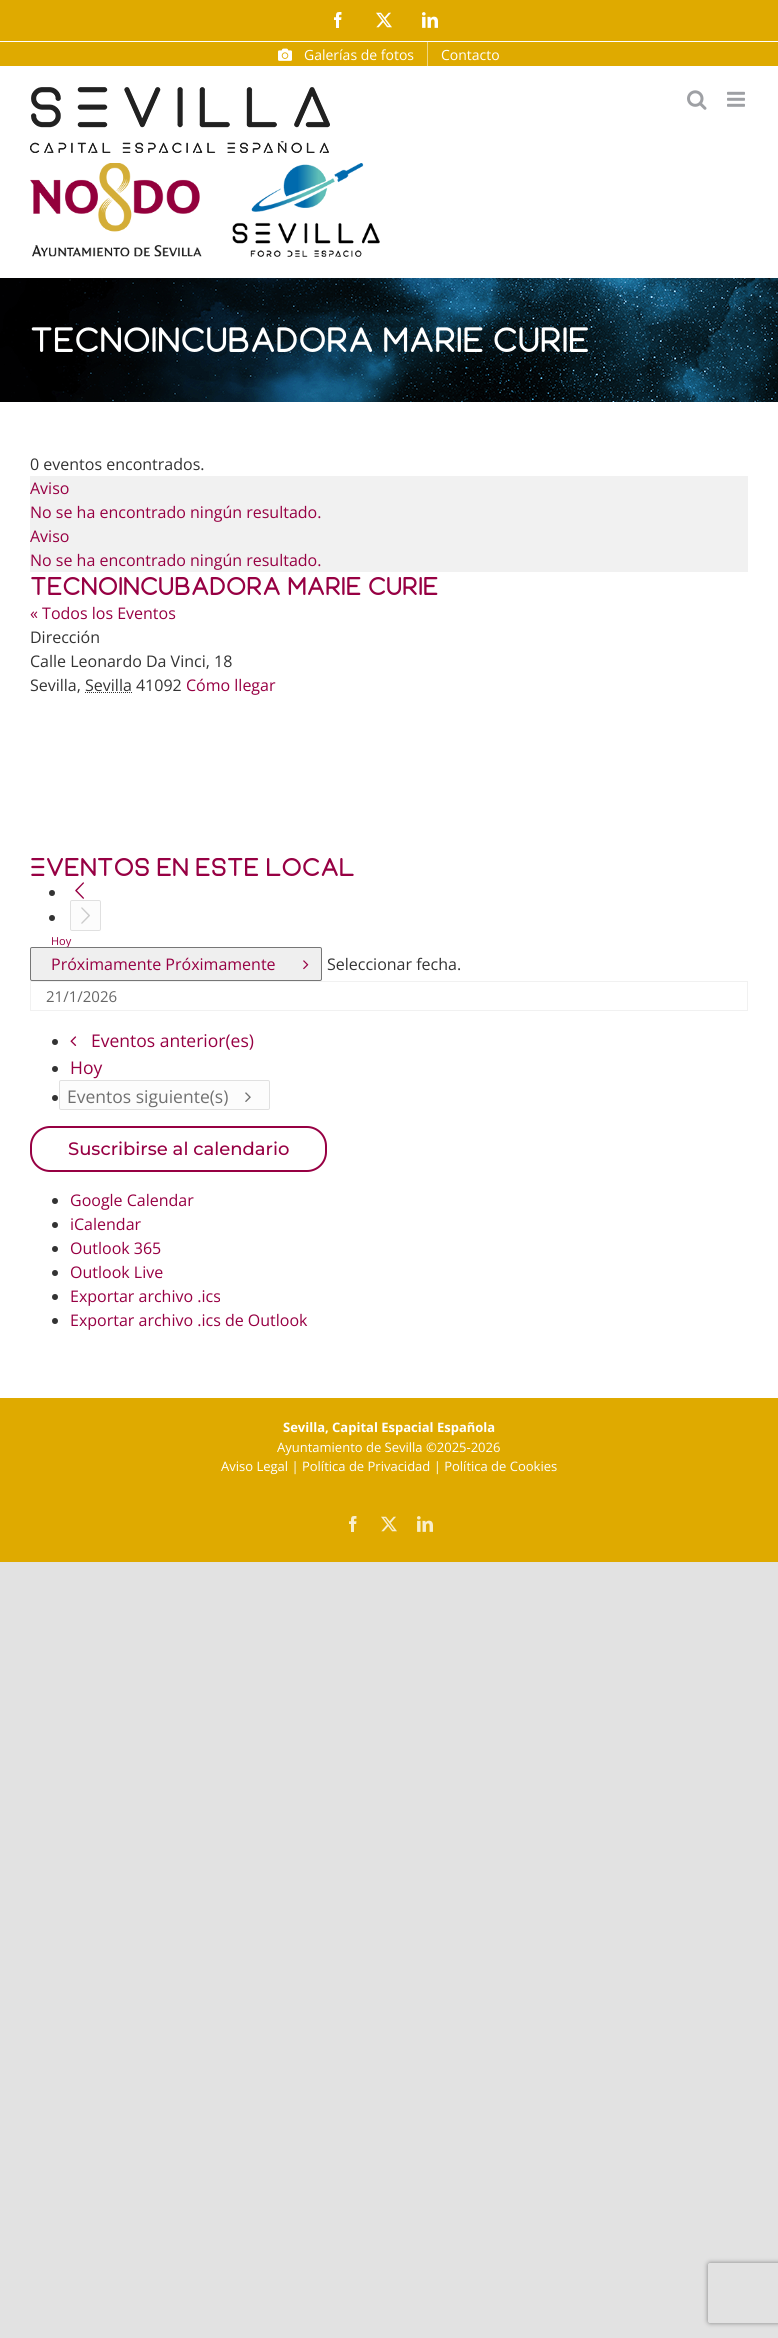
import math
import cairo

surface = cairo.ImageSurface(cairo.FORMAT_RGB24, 778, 2338)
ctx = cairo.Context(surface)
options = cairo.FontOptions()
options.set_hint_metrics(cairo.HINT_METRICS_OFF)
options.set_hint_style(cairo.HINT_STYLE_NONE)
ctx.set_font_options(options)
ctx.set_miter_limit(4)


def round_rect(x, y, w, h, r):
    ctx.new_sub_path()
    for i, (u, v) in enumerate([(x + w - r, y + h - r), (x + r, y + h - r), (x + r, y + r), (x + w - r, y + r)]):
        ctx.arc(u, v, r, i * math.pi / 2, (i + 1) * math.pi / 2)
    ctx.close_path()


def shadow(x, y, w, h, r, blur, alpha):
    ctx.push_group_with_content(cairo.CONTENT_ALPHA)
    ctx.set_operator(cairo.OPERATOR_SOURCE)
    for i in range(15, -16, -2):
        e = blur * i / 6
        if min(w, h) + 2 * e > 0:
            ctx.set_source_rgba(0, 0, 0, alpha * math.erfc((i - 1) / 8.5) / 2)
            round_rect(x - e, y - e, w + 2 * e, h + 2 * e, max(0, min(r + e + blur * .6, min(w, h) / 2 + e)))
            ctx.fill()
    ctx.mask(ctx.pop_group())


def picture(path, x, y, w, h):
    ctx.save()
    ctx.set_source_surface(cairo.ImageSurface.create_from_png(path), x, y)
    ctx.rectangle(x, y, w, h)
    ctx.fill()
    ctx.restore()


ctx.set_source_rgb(0.886, 0.886, 0.886)
ctx.paint()
ctx.set_source_rgb(1, 1, 1)
ctx.rectangle(0, 66, 778, 1332)
ctx.fill()
ctx.set_source_rgb(0.875, 0.667, 0)
ctx.rectangle(0, 0, 778, 66)
ctx.fill()
ctx.set_source_rgb(1, 1, 1)
ctx.rectangle(0, 41, 778, 1)
ctx.fill()
picture("img1.png", 334, 12, 8, 16)
picture("img2.png", 376, 12, 16, 16)
picture("img3.png", 422, 12, 16, 16)
picture("img4.png", 278, 48, 14, 13)
ctx.select_font_face("Open Sans")
ctx.set_font_size(14)
ctx.move_to(304, 60)
ctx.show_text("Galerías de fotos")
ctx.set_source_rgb(0.937, 0.835, 0.502)
ctx.rectangle(427, 42, 1, 24)
ctx.fill()
ctx.set_source_rgb(1, 1, 1)
ctx.move_to(441, 60)
ctx.show_text("Contacto")
picture("img5.png", 30, 87, 300, 66)
picture("img6.png", 30, 163, 350, 94)
picture("img7.png", 687, 90, 20, 20)
picture("img8.png", 727, 91, 18, 16)
picture("img9.png", 0, 278, 778, 124)
ctx.select_font_face("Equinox", cairo.FONT_SLANT_NORMAL, cairo.FONT_WEIGHT_BOLD)
ctx.set_font_size(35.2)
ctx.move_to(30, 352)
ctx.show_text("Tecnoincubadora Marie Curie")
ctx.select_font_face("Open Sans")
ctx.set_font_size(16)
ctx.set_source_rgb(0.2, 0.2, 0.2)
ctx.move_to(30, 470)
ctx.show_text("0 eventos encontrados.")
ctx.set_source_rgb(0.945, 0.945, 0.945)
ctx.rectangle(30, 476, 718, 96)
ctx.fill()
ctx.set_source_rgb(0.592, 0, 0.263)
ctx.move_to(30, 494)
ctx.show_text("Aviso")
ctx.move_to(30, 518)
ctx.show_text("No se ha encontrado ningún resultado.")
ctx.move_to(30, 542)
ctx.show_text("Aviso")
ctx.move_to(30, 566)
ctx.show_text("No se ha encontrado ningún resultado.")
ctx.select_font_face("Equinox", cairo.FONT_SLANT_NORMAL, cairo.FONT_WEIGHT_BOLD)
ctx.set_font_size(25.7)
ctx.move_to(30, 595)
ctx.show_text("Tecnoincubadora Marie Curie")
ctx.select_font_face("Open Sans")
ctx.set_font_size(16)
ctx.move_to(30, 619)
ctx.show_text("« Todos los Eventos")
ctx.set_source_rgb(0.2, 0.2, 0.2)
ctx.move_to(30, 643)
ctx.show_text("Dirección")
ctx.move_to(30, 667)
ctx.show_text("Calle Leonardo Da Vinci, 18")
ctx.move_to(30, 691)
ctx.show_text("Sevilla, Sevilla 41092")
ctx.new_path()
ctx.move_to(85, 692.5)
ctx.line_to(132, 692.5)
ctx.set_line_width(1)
ctx.set_dash([1, 1])
ctx.stroke()
ctx.set_source_rgb(0.592, 0, 0.263)
ctx.move_to(186, 691)
ctx.show_text("Cómo llegar")
ctx.select_font_face("Equinox", cairo.FONT_SLANT_NORMAL, cairo.FONT_WEIGHT_BOLD)
ctx.set_font_size(25.7)
ctx.move_to(30, 876)
ctx.show_text("Eventos en este local")
ctx.set_source_rgb(0.2, 0.2, 0.2)
ctx.new_path()
ctx.arc(52, 893, 3, 0, 2 * math.pi)
ctx.fill()
picture("img10.png", 75, 882, 9, 17)
ctx.arc(52, 918, 3, 0, 2 * math.pi)
ctx.fill()
ctx.set_source_rgb(0.988, 0.988, 0.988)
round_rect(70.5, 900.5, 30, 30, 1.5)
ctx.fill_preserve()
ctx.set_source_rgb(0.878, 0.878, 0.878)
ctx.set_dash([])
ctx.stroke()
picture("img11.png", 81, 907, 9, 17)
ctx.select_font_face("Open Sans")
ctx.set_font_size(11)
ctx.set_source_rgb(0.592, 0, 0.263)
ctx.move_to(51, 945)
ctx.show_text("Hoy")
ctx.set_source_rgb(0.937, 0.937, 0.937)
round_rect(30.5, 947.5, 291, 33, 1.5)
ctx.fill_preserve()
ctx.set_source_rgb(0.463, 0.463, 0.463)
ctx.stroke()
ctx.set_font_size(16)
ctx.set_source_rgb(0.592, 0, 0.263)
ctx.move_to(51, 970)
ctx.show_text("Próximamente Próximamente")
picture("img12.png", 303, 960, 6, 10)
ctx.set_source_rgb(0.2, 0.2, 0.2)
ctx.move_to(327, 970)
ctx.show_text("Seleccionar fecha.")
ctx.rectangle(30.5, 981.5, 717, 29)
ctx.set_source_rgb(0.945, 0.945, 0.945)
ctx.stroke()
ctx.set_font_size(15)
ctx.set_source_rgb(0.4, 0.4, 0.4)
ctx.move_to(46, 1002)
ctx.show_text("21/1/2026")
ctx.set_source_rgb(0.2, 0.2, 0.2)
ctx.new_path()
ctx.arc(55, 1042, 3, 0, 2 * math.pi)
ctx.fill()
picture("img13.png", 70, 1036, 7, 10)
ctx.set_font_size(17.5)
ctx.set_source_rgb(0.592, 0, 0.263)
ctx.move_to(91, 1047)
ctx.show_text("Eventos anterior(es)")
ctx.set_source_rgb(0.2, 0.2, 0.2)
ctx.new_path()
ctx.arc(55, 1069, 3, 0, 2 * math.pi)
ctx.fill()
ctx.set_source_rgb(0.592, 0, 0.263)
ctx.move_to(70, 1074)
ctx.show_text("Hoy")
ctx.set_source_rgb(0.2, 0.2, 0.2)
ctx.new_path()
ctx.arc(55, 1098, 3, 0, 2 * math.pi)
ctx.fill()
ctx.set_source_rgb(0.988, 0.988, 0.988)
round_rect(59.5, 1080.5, 210, 29, 1.5)
ctx.fill_preserve()
ctx.set_source_rgb(0.878, 0.878, 0.878)
ctx.stroke()
ctx.set_source_rgb(0.439, 0.439, 0.439)
ctx.move_to(67, 1103)
ctx.show_text("Eventos siguiente(s)")
picture("img14.png", 245, 1092, 6, 10)
round_rect(31, 1127, 295, 44, 19)
ctx.set_source_rgb(0.592, 0, 0.263)
ctx.set_line_width(2)
ctx.stroke()
ctx.select_font_face("Montserrat Thin")
ctx.set_font_size(18)
ctx.move_to(68, 1155)
ctx.show_text("Suscribirse al calendario")
ctx.set_source_rgb(0.2, 0.2, 0.2)
ctx.new_path()
ctx.arc(55, 1201, 3, 0, 2 * math.pi)
ctx.fill()
ctx.select_font_face("Open Sans")
ctx.set_font_size(16)
ctx.set_source_rgb(0.592, 0, 0.263)
ctx.move_to(70, 1206)
ctx.show_text("Google Calendar")
ctx.set_source_rgb(0.2, 0.2, 0.2)
ctx.new_path()
ctx.arc(55, 1225, 3, 0, 2 * math.pi)
ctx.fill()
ctx.set_source_rgb(0.592, 0, 0.263)
ctx.move_to(70, 1230)
ctx.show_text("iCalendar")
ctx.set_source_rgb(0.2, 0.2, 0.2)
ctx.new_path()
ctx.arc(55, 1249, 3, 0, 2 * math.pi)
ctx.fill()
ctx.set_source_rgb(0.592, 0, 0.263)
ctx.move_to(70, 1254)
ctx.show_text("Outlook 365")
ctx.set_source_rgb(0.2, 0.2, 0.2)
ctx.new_path()
ctx.arc(55, 1273, 3, 0, 2 * math.pi)
ctx.fill()
ctx.set_source_rgb(0.592, 0, 0.263)
ctx.move_to(70, 1278)
ctx.show_text("Outlook Live")
ctx.set_source_rgb(0.2, 0.2, 0.2)
ctx.new_path()
ctx.arc(55, 1297, 3, 0, 2 * math.pi)
ctx.fill()
ctx.set_source_rgb(0.592, 0, 0.263)
ctx.move_to(70, 1302)
ctx.show_text("Exportar archivo .ics")
ctx.set_source_rgb(0.2, 0.2, 0.2)
ctx.new_path()
ctx.arc(55, 1321, 3, 0, 2 * math.pi)
ctx.fill()
ctx.set_source_rgb(0.592, 0, 0.263)
ctx.move_to(70, 1326)
ctx.show_text("Exportar archivo .ics de Outlook")
ctx.set_source_rgb(0.875, 0.667, 0)
ctx.rectangle(0, 1398, 778, 164)
ctx.fill()
ctx.select_font_face("Open Sans", cairo.FONT_SLANT_NORMAL, cairo.FONT_WEIGHT_BOLD)
ctx.set_font_size(13)
ctx.set_source_rgb(1, 1, 1)
ctx.move_to(283, 1432)
ctx.show_text("Sevilla, Capital Espacial Española")
ctx.select_font_face("Open Sans")
ctx.move_to(277, 1452)
ctx.show_text("Ayuntamiento de Sevilla ©2025-2026")
ctx.move_to(221, 1471)
ctx.show_text("Aviso Legal | Política de Privacidad | Política de Cookies")
picture("img15.png", 349, 1516, 8, 16)
picture("img16.png", 381, 1516, 16, 16)
picture("img17.png", 417, 1516, 16, 16)
ctx.save()
ctx.set_fill_rule(cairo.FILL_RULE_EVEN_ODD)
ctx.new_path()
ctx.move_to(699, 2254)
ctx.line_to(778, 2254)
ctx.line_to(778, 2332)
ctx.line_to(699, 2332)
ctx.close_path()
ctx.move_to(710, 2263)
ctx.line_to(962, 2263)
ctx.curve_to(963, 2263, 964, 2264, 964, 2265)
ctx.line_to(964, 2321)
ctx.curve_to(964, 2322, 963, 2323, 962, 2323)
ctx.line_to(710, 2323)
ctx.curve_to(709, 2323, 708, 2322, 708, 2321)
ctx.line_to(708, 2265)
ctx.curve_to(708, 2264, 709, 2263, 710, 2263)
ctx.close_path()
ctx.clip()
ctx.set_source_rgb(0.502, 0.502, 0.502)
shadow(708, 2263, 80, 60, 2, 2.5, 1)
ctx.restore()
surface.write_to_png("page.png")
